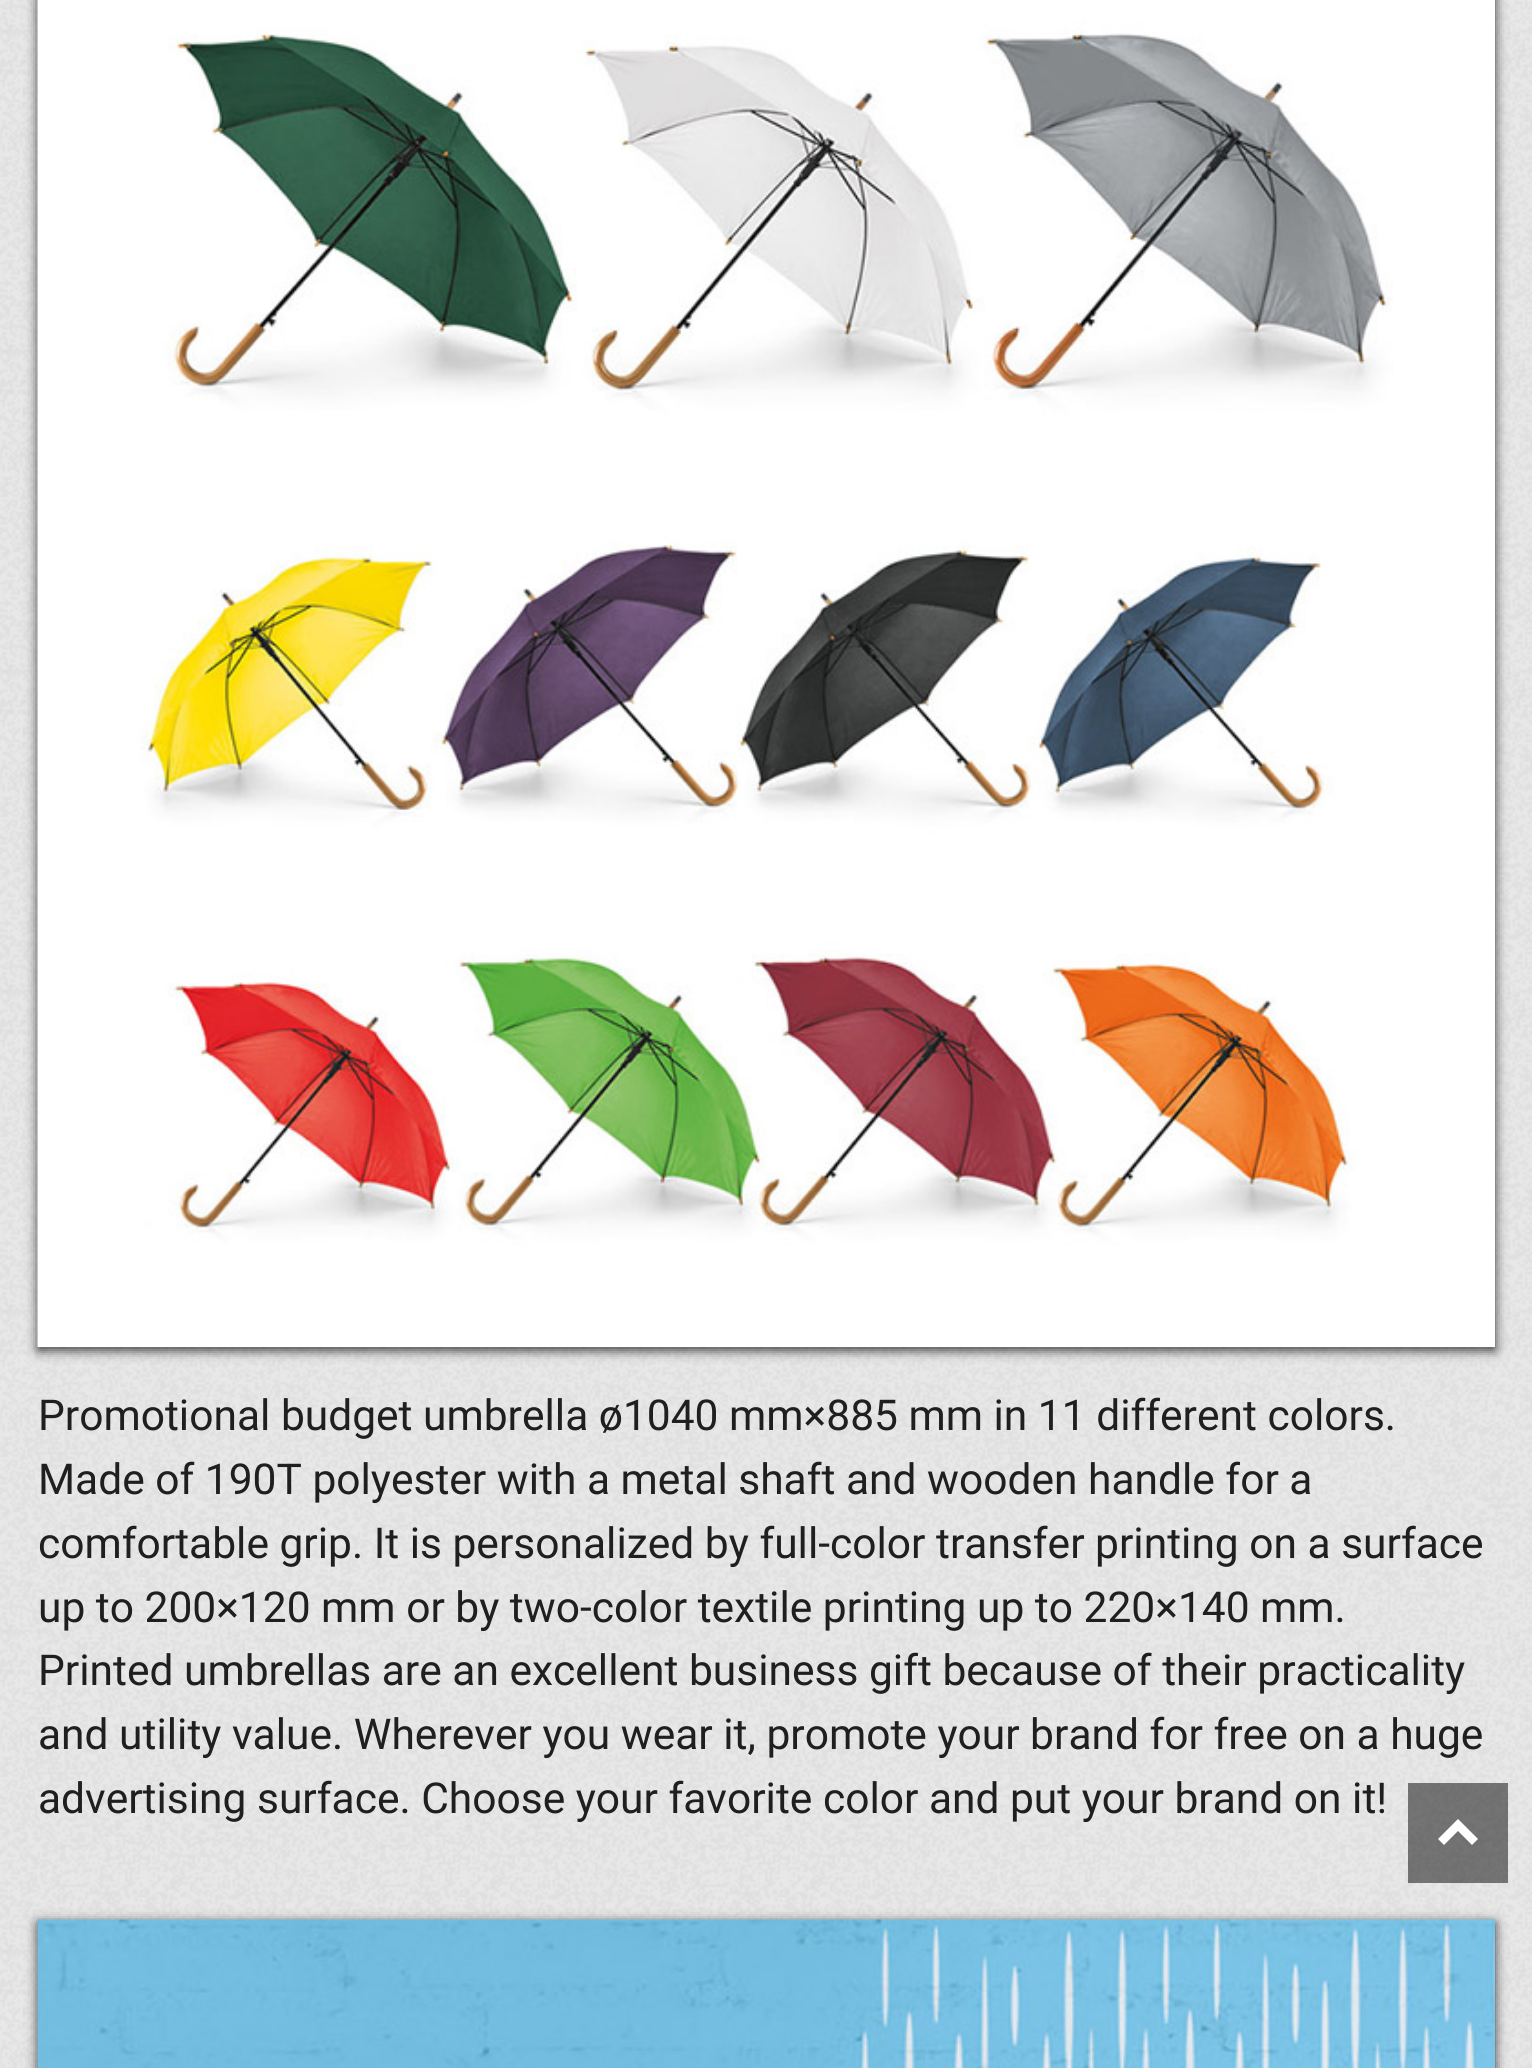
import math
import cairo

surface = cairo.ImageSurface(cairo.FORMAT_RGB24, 1532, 2068)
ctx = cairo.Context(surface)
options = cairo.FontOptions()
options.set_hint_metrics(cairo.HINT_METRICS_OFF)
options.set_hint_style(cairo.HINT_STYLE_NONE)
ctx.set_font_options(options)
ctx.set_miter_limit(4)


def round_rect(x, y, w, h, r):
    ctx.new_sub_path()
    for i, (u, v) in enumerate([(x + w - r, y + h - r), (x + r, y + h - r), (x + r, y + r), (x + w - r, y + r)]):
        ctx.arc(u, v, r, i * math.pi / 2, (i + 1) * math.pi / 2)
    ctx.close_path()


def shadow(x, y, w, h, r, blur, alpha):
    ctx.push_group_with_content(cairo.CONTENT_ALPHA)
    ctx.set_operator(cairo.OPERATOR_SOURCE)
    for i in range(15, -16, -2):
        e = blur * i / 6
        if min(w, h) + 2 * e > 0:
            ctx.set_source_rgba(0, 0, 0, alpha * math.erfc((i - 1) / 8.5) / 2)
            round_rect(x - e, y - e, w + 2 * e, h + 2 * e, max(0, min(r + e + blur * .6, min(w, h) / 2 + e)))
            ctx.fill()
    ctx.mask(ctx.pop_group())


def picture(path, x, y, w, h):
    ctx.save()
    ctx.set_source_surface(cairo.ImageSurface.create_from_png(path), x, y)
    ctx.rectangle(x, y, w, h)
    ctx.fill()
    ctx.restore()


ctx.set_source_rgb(0.91, 0.91, 0.91)
ctx.paint()
picture("img1.png", 0, 0, 1532, 2068)
ctx.set_source_rgb(0, 0, 0)
shadow(38, -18, 1457, 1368, 0, 6, 0.8)
picture("img2.png", 37, 0, 1458, 1347)
ctx.select_font_face("Roboto")
ctx.set_font_size(42.5)
ctx.set_source_rgb(0.122, 0.122, 0.122)
ctx.move_to(38, 1430)
ctx.show_text("Promotional budget umbrella ø1040 mm×885 mm in 11 different colors.")
ctx.move_to(38, 1494)
ctx.show_text("Made of 190T polyester with a metal shaft and wooden handle for a")
ctx.move_to(38, 1558)
ctx.show_text("comfortable grip. It is personalized by full-color transfer printing on a surface")
ctx.move_to(38, 1622)
ctx.show_text("up to 200×120 mm or by two-color textile printing up to 220×140 mm.")
ctx.move_to(38, 1685)
ctx.show_text("Printed umbrellas are an excellent business gift because of their practicality")
ctx.move_to(38, 1749)
ctx.show_text("and utility value. Wherever you wear it, promote your brand for free on a huge")
ctx.move_to(38, 1813)
ctx.show_text("advertising surface. Choose your favorite color and put your brand on it!")
ctx.set_source_rgb(0, 0, 0)
shadow(38, 1923, 1457, 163, 0, 6, 0.8)
picture("img3.png", 37, 1919, 1458, 149)
ctx.set_source_rgba(0, 0, 0, 0.5)
ctx.rectangle(1408, 1783, 100, 100)
ctx.fill()
ctx.set_source_rgb(1, 1, 1)
ctx.new_path()
ctx.move_to(1458, 1819)
ctx.line_to(1478, 1839)
ctx.line_to(1472, 1845)
ctx.line_to(1458, 1831)
ctx.line_to(1444, 1845)
ctx.line_to(1438, 1839)
ctx.close_path()
ctx.fill()
surface.write_to_png("page.png")
